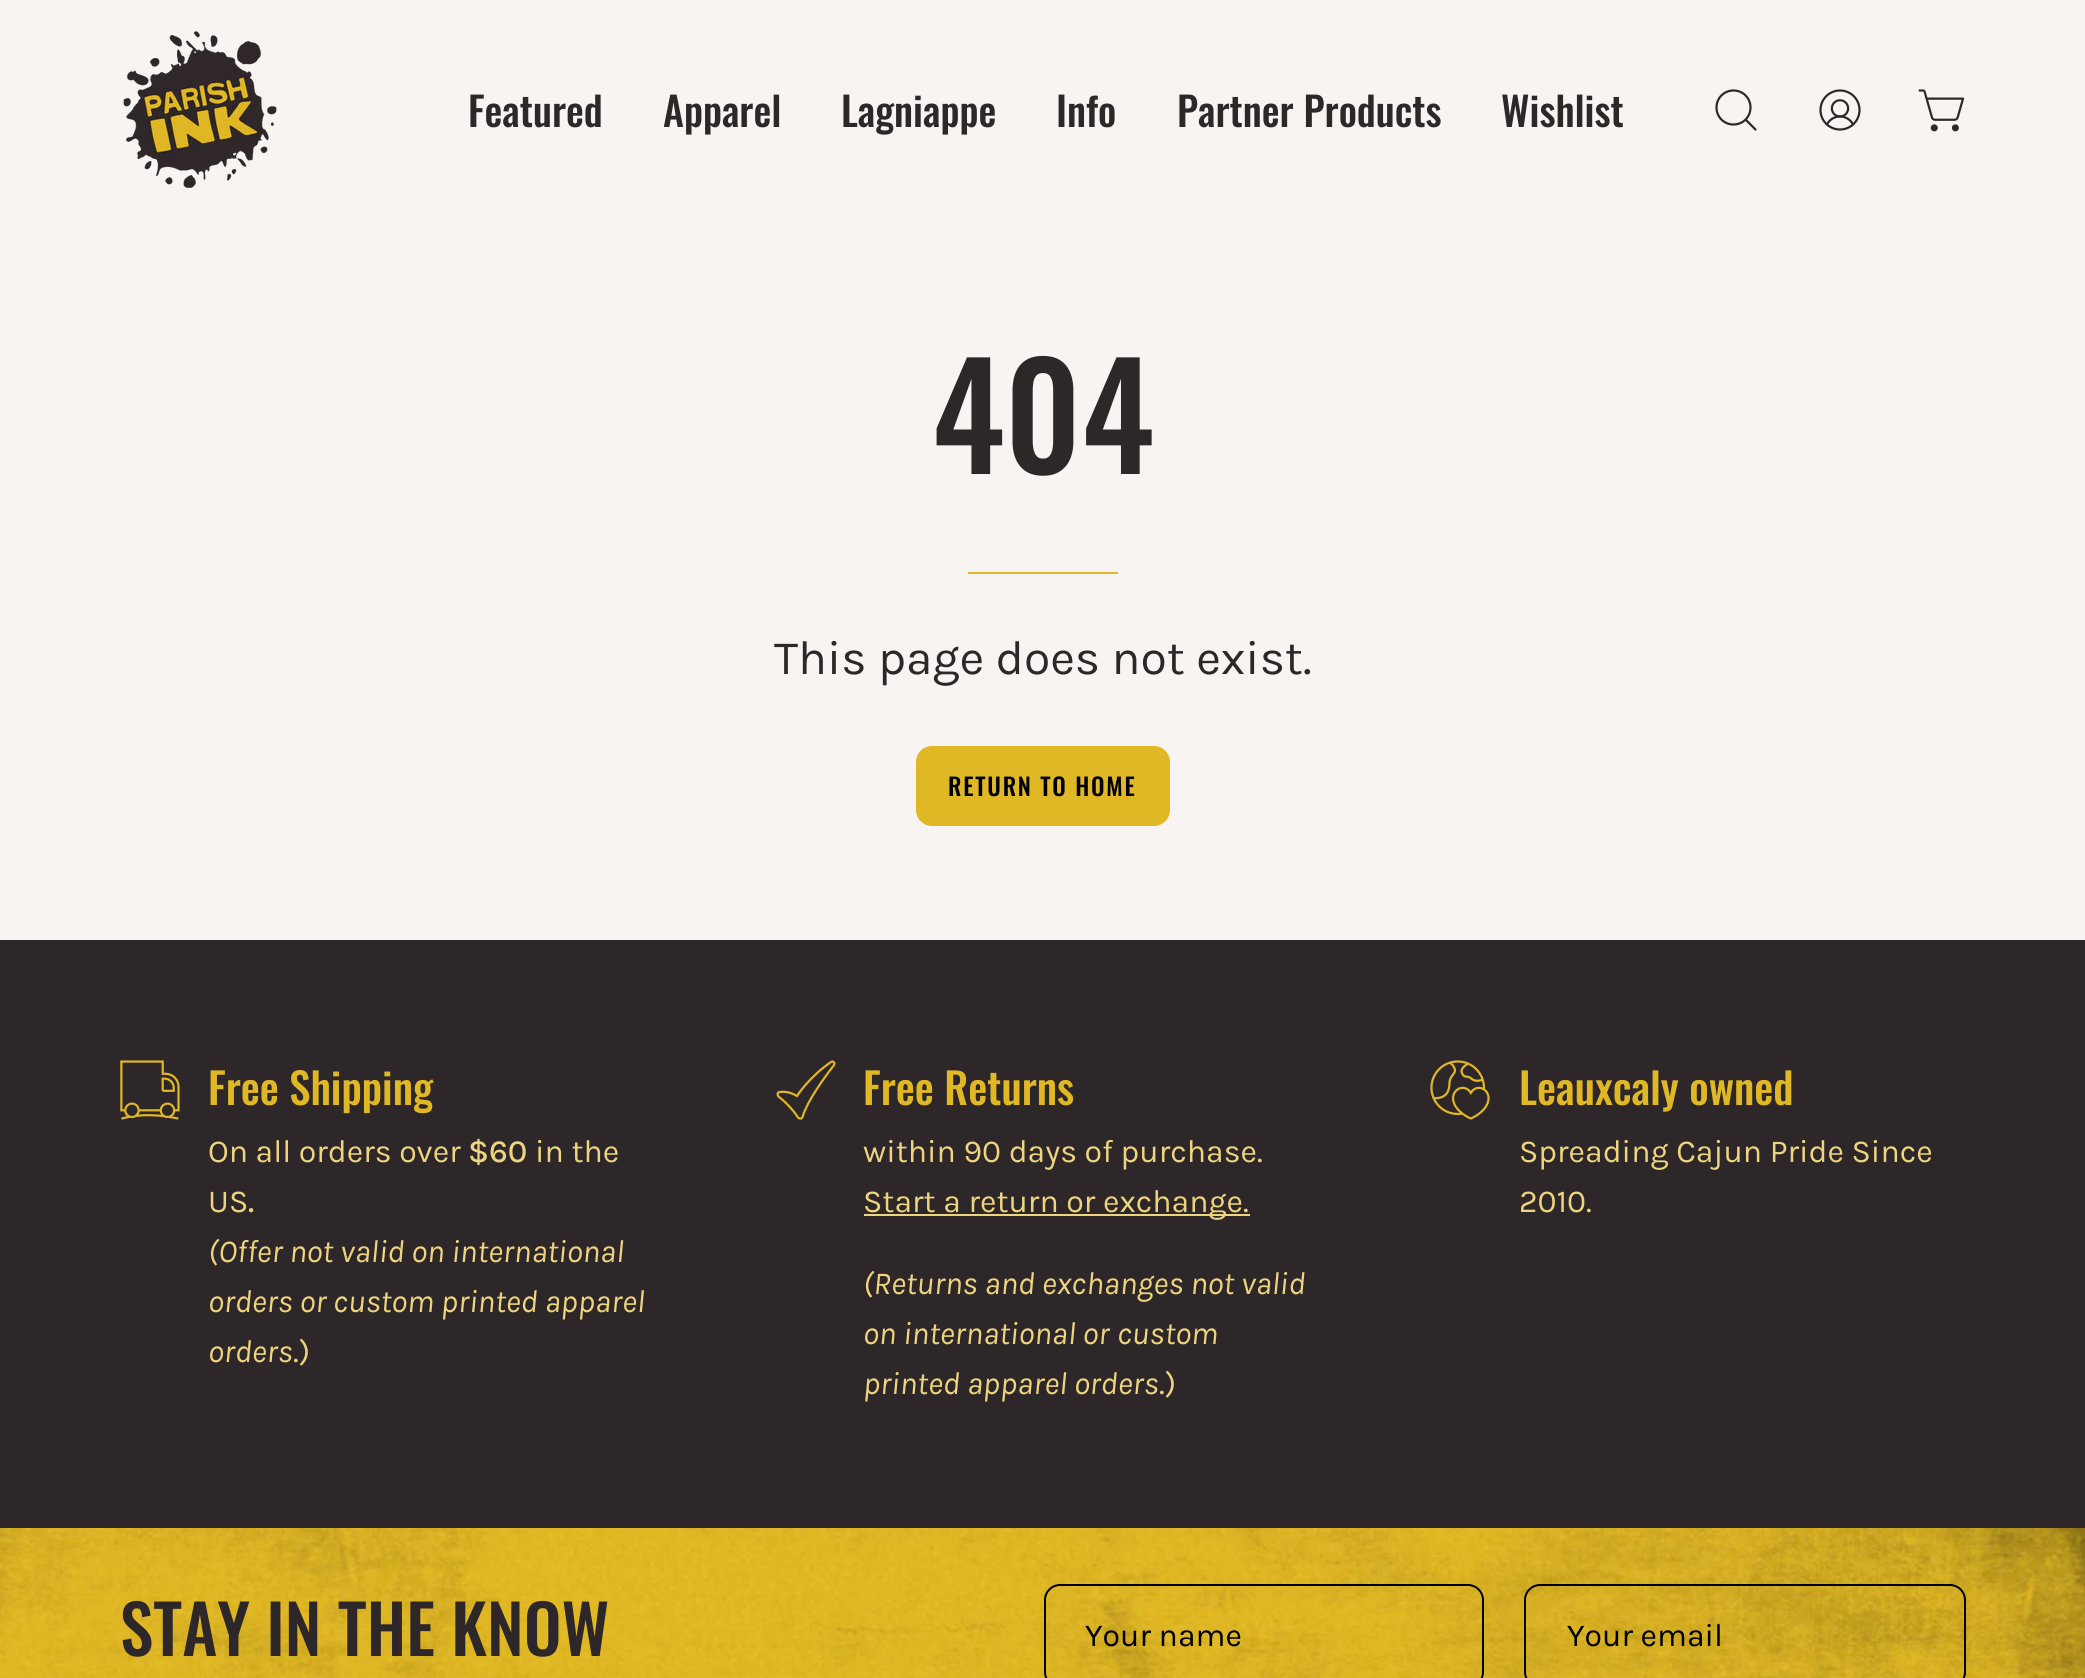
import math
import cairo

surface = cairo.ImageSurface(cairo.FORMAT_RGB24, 2085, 1678)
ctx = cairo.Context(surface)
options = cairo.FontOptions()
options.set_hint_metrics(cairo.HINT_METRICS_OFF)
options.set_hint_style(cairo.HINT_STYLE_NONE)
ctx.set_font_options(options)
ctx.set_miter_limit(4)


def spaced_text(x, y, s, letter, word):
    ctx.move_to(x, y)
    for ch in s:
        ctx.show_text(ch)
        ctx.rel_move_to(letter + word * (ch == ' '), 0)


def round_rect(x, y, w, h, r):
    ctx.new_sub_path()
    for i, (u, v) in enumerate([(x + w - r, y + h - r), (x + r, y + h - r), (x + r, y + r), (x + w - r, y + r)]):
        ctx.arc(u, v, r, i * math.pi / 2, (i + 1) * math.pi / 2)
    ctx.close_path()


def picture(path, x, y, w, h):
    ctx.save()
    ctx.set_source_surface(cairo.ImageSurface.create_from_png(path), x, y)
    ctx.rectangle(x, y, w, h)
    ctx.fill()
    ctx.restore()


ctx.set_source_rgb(0.965, 0.957, 0.945)
ctx.paint()
picture("img1.png", 123, 31, 154, 157)
ctx.select_font_face("Oswald Medium")
ctx.set_font_size(40)
ctx.set_source_rgb(0.18, 0.153, 0.165)
ctx.move_to(468, 127)
ctx.show_text("Featured")
ctx.move_to(663, 127)
ctx.show_text("Apparel")
ctx.move_to(841, 127)
ctx.show_text("Lagniappe")
ctx.move_to(1056, 127)
ctx.show_text("Info")
ctx.move_to(1177, 127)
ctx.show_text("Partner Products")
ctx.move_to(1501, 127)
ctx.show_text("Wishlist")
ctx.new_path()
ctx.move_to(1733.5, 124.5)
ctx.curve_to(1743, 124.5, 1750.5, 117, 1750.5, 107.5)
ctx.curve_to(1750.5, 98, 1743, 90.5, 1733.5, 90.5)
ctx.curve_to(1724, 90.5, 1716.5, 98, 1716.5, 107.5)
ctx.curve_to(1716.5, 117, 1724, 124.5, 1733.5, 124.5)
ctx.close_path()
ctx.move_to(1745.5, 119.5)
ctx.line_to(1755.5, 129.5)
ctx.set_line_width(2.2)
ctx.set_line_cap(cairo.LINE_CAP_ROUND)
ctx.set_line_join(cairo.LINE_JOIN_ROUND)
ctx.stroke()
picture("img2.png", 1819, 89, 42, 42)
picture("img3.png", 1918, 89, 47, 43)
ctx.set_font_size(144)
ctx.move_to(932, 474)
ctx.show_text("404")
ctx.set_source_rgb(0.878, 0.718, 0.145)
ctx.rectangle(968, 572, 150, 2)
ctx.fill()
ctx.select_font_face("Karla")
ctx.set_font_size(48)
ctx.set_source_rgb(0.18, 0.153, 0.165)
ctx.move_to(774, 674)
ctx.show_text("This page does not exist.")
ctx.set_source_rgb(0.878, 0.718, 0.145)
round_rect(916, 746, 254, 80, 16)
ctx.fill()
ctx.select_font_face("Oswald Medium")
ctx.set_font_size(24)
ctx.set_source_rgb(0, 0, 0)
spaced_text(948, 796, "RETURN TO HOME", 1.75, 0)
ctx.set_source_rgb(0.18, 0.153, 0.165)
ctx.rectangle(0, 940, 2085, 588)
ctx.fill()
picture("img4.png", 120, 1060, 60, 60)
ctx.set_font_size(42.75)
ctx.set_source_rgb(0.878, 0.718, 0.145)
ctx.move_to(208, 1105)
ctx.show_text("Free Shipping")
ctx.select_font_face("Karla")
ctx.set_font_size(32)
ctx.set_source_rgb(0.929, 0.831, 0.494)
ctx.move_to(208, 1162)
ctx.show_text("On all orders over")
ctx.select_font_face("Karla Medium")
ctx.move_to(468, 1162)
ctx.show_text("$60")
ctx.select_font_face("Karla")
ctx.move_to(535, 1162)
ctx.show_text("in the")
ctx.move_to(208, 1212)
ctx.show_text("US")
ctx.select_font_face("Karla Medium")
ctx.move_to(248, 1212)
ctx.show_text(".")
ctx.select_font_face("Karla", cairo.FONT_SLANT_ITALIC)
ctx.move_to(208, 1262)
ctx.show_text("(Offer not valid on international")
ctx.move_to(208, 1312)
ctx.show_text("orders or custom printed apparel")
ctx.move_to(208, 1362)
ctx.show_text("orders")
ctx.select_font_face("Karla")
ctx.move_to(293, 1362)
ctx.show_text(".)")
ctx.new_path()
ctx.move_to(797, 1096)
ctx.curve_to(797, 1096, 808.5, 1077.5, 831, 1062)
ctx.curve_to(833, 1060.5, 835.5, 1063, 834, 1065)
ctx.curve_to(824, 1078, 807, 1101.5, 802.5, 1117)
ctx.curve_to(802, 1119, 799.5, 1119, 798, 1117.5)
ctx.curve_to(795, 1112.5, 788.5, 1104.5, 778.5, 1096.5)
ctx.curve_to(777, 1095, 777.5, 1092, 779.5, 1092)
ctx.curve_to(783.5, 1091.5, 789.5, 1091.5, 797, 1096)
ctx.close_path()
ctx.set_source_rgb(0.878, 0.718, 0.145)
ctx.set_line_cap(cairo.LINE_CAP_BUTT)
ctx.set_line_join(cairo.LINE_JOIN_MITER)
ctx.stroke()
ctx.select_font_face("Oswald Medium")
ctx.set_font_size(42.75)
ctx.move_to(863, 1105)
ctx.show_text("Free Returns")
ctx.select_font_face("Karla")
ctx.set_font_size(32)
ctx.set_source_rgb(0.929, 0.831, 0.494)
ctx.move_to(863, 1162)
ctx.show_text("within 90 days of purchase.")
ctx.rectangle(864, 1214, 386, 2)
ctx.fill()
ctx.move_to(863, 1212)
ctx.show_text("Start a return or exchange.")
ctx.select_font_face("Karla", cairo.FONT_SLANT_ITALIC)
ctx.move_to(863, 1294)
ctx.show_text("(Returns and exchanges not valid")
ctx.move_to(863, 1344)
ctx.show_text("on international or")
ctx.move_to(1117, 1344)
ctx.show_text("custom")
ctx.move_to(863, 1394)
ctx.show_text("printed apparel orders")
ctx.select_font_face("Karla")
ctx.move_to(1159, 1394)
ctx.show_text(".)")
picture("img5.png", 1430, 1060, 60, 60)
ctx.select_font_face("Oswald Medium")
ctx.set_font_size(42.75)
ctx.set_source_rgb(0.878, 0.718, 0.145)
ctx.move_to(1519, 1105)
ctx.show_text("Leauxcaly owned")
ctx.select_font_face("Karla")
ctx.set_font_size(32)
ctx.set_source_rgb(0.929, 0.831, 0.494)
ctx.move_to(1519, 1162)
ctx.show_text("Spreading Cajun Pride Since")
ctx.move_to(1519, 1212)
ctx.show_text("2010.")
picture("img6.png", 0, 1528, 2085, 150)
ctx.select_font_face("Oswald Medium")
ctx.set_font_size(67.25)
ctx.set_source_rgb(0.18, 0.153, 0.165)
ctx.move_to(120, 1656)
ctx.show_text("STAY IN THE KNOW")
round_rect(1045, 1585, 438, 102, 15)
ctx.set_source_rgb(0, 0, 0)
ctx.set_line_width(2)
ctx.stroke()
ctx.select_font_face("Karla")
ctx.set_font_size(32)
ctx.move_to(1085, 1646)
ctx.show_text("Your name")
round_rect(1525, 1585, 440, 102, 15)
ctx.stroke()
ctx.move_to(1567, 1646)
ctx.show_text("Your email")
surface.write_to_png("page.png")
